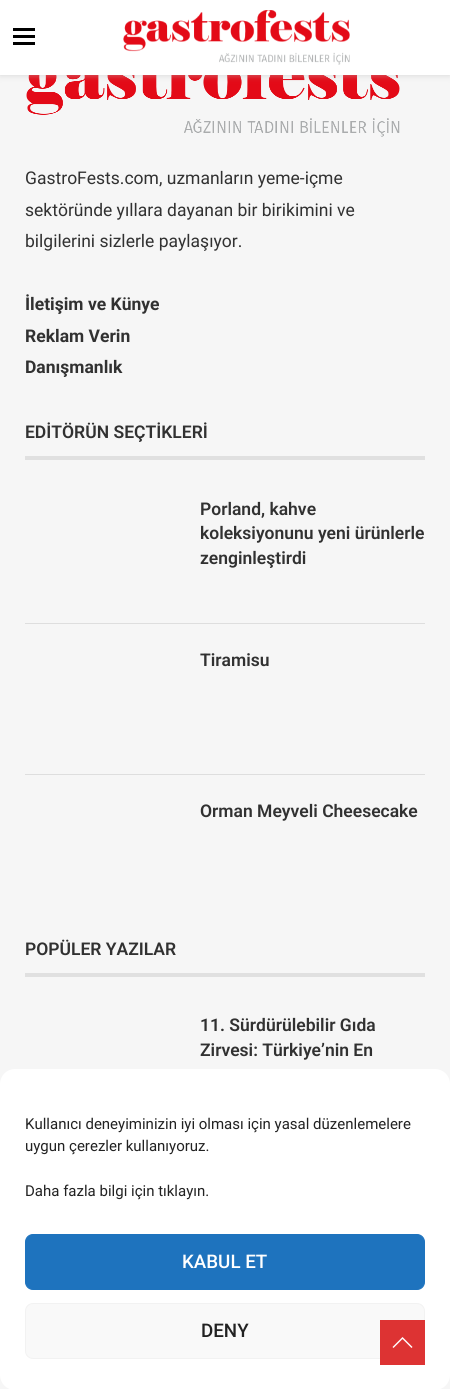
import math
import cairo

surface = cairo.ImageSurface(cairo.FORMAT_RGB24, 450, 1389)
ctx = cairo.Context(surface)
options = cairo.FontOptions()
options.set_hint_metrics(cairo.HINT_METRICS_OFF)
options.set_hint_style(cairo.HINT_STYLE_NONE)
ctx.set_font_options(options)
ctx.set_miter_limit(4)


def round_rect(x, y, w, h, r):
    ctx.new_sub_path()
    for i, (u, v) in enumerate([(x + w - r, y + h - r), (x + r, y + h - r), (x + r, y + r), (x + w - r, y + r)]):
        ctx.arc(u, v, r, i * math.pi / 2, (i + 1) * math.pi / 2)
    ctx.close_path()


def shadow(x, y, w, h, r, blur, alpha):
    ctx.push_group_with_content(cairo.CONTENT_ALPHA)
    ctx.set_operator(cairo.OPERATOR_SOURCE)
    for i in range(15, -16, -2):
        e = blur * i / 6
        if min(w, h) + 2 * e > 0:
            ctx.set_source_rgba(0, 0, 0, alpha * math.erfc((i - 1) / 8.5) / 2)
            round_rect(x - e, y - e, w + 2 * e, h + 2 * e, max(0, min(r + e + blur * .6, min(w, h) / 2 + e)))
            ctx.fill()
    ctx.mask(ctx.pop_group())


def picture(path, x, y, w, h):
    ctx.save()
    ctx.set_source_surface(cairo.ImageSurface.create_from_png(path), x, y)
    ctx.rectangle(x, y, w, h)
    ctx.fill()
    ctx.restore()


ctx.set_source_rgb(0.961, 0.961, 0.961)
ctx.paint()
picture("img2.png", 26, 75, 374, 62)
ctx.set_source_rgb(0.745, 0.745, 0.745)
shadow(0, 1, 450, 75, 0, 3, 0.46)
ctx.set_source_rgb(1, 1, 1)
ctx.rectangle(0, 0, 450, 75)
ctx.fill()
ctx.set_source_rgb(0, 0, 0)
ctx.rectangle(13, 28, 22, 3)
ctx.fill()
ctx.rectangle(13, 35, 22, 3)
ctx.fill()
ctx.rectangle(13, 42, 22, 3)
ctx.fill()
picture("img1.png", 123, 10, 227, 55)
ctx.select_font_face("Roboto")
ctx.set_font_size(17.5)
ctx.set_source_rgb(0.192, 0.192, 0.192)
ctx.move_to(25, 184)
ctx.show_text("GastroFests.com, uzmanların yeme-içme")
ctx.move_to(25, 216)
ctx.show_text("sektöründe yıllara dayanan bir birikimini ve")
ctx.move_to(25, 247)
ctx.show_text("bilgilerini sizlerle paylaşıyor.")
ctx.select_font_face("Roboto", cairo.FONT_SLANT_NORMAL, cairo.FONT_WEIGHT_BOLD)
ctx.move_to(25, 310)
ctx.show_text("İletişim ve Künye")
ctx.move_to(25, 342)
ctx.show_text("Reklam Verin")
ctx.move_to(25, 373)
ctx.show_text("Danışmanlık")
ctx.set_source_rgb(0.878, 0.878, 0.878)
ctx.rectangle(25, 456, 400, 4)
ctx.fill()
ctx.select_font_face("Roboto SemiBold")
ctx.set_source_rgb(0.192, 0.192, 0.192)
ctx.move_to(25, 438)
ctx.show_text("EDİTÖRÜN SEÇTİKLERİ")
ctx.set_source_rgb(0.871, 0.871, 0.871)
ctx.rectangle(25, 623, 400, 1)
ctx.fill()
ctx.set_source_rgb(0.192, 0.192, 0.192)
ctx.move_to(200, 515)
ctx.show_text("Porland, kahve")
ctx.move_to(200, 539)
ctx.show_text("koleksiyonunu yeni ürünlerle")
ctx.move_to(200, 564)
ctx.show_text("zenginleştirdi")
ctx.set_source_rgb(0.871, 0.871, 0.871)
ctx.rectangle(25, 774, 400, 1)
ctx.fill()
ctx.set_source_rgb(0.192, 0.192, 0.192)
ctx.move_to(200, 666)
ctx.show_text("Tiramisu")
ctx.move_to(200, 817)
ctx.show_text("Orman Meyveli Cheesecake")
ctx.set_source_rgb(0.878, 0.878, 0.878)
ctx.rectangle(25, 973, 400, 4)
ctx.fill()
ctx.set_source_rgb(0.192, 0.192, 0.192)
ctx.move_to(25, 955)
ctx.show_text("POPÜLER YAZILAR")
ctx.move_to(200, 1031)
ctx.show_text("11. Sürdürülebilir Gıda")
ctx.move_to(200, 1056)
ctx.show_text("Zirvesi: Türkiye’nin En")
ctx.set_source_rgb(1, 1, 1)
round_rect(0, 1069, 450, 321, 15)
ctx.fill()
ctx.select_font_face("Roboto")
ctx.set_font_size(15)
ctx.set_source_rgb(0.133, 0.133, 0.133)
ctx.move_to(25, 1129)
ctx.show_text("Kullanıcı deneyiminizin iyi olması için yasal düzenlemelere")
ctx.move_to(25, 1151)
ctx.show_text("uygun çerezler kullanıyoruz.")
ctx.move_to(25, 1196)
ctx.show_text("Daha fazla bilgi için tıklayın.")
ctx.set_source_rgb(0.118, 0.451, 0.745)
round_rect(25.5, 1234.5, 399, 55, 7.5)
ctx.fill_preserve()
ctx.set_line_width(1)
ctx.stroke()
ctx.select_font_face("Roboto Medium")
ctx.set_font_size(18.75)
ctx.set_source_rgb(1, 1, 1)
ctx.move_to(182, 1268)
ctx.show_text("KABUL ET")
ctx.set_source_rgb(0.976, 0.976, 0.976)
round_rect(25.5, 1303.5, 399, 55, 7.5)
ctx.fill_preserve()
ctx.set_source_rgb(0.949, 0.949, 0.949)
ctx.stroke()
ctx.set_source_rgb(0.133, 0.133, 0.133)
ctx.move_to(201, 1337)
ctx.show_text("DENY")
ctx.set_source_rgb(0.867, 0.2, 0.2)
ctx.rectangle(380, 1320, 45, 45)
ctx.fill()
ctx.set_source_rgb(1, 1, 1)
ctx.new_path()
ctx.move_to(402.5, 1337)
ctx.line_to(392.5, 1347)
ctx.line_to(393.5, 1348)
ctx.line_to(402.5, 1339)
ctx.line_to(411.5, 1348)
ctx.line_to(412.5, 1347)
ctx.close_path()
ctx.fill()
surface.write_to_png("page.png")
